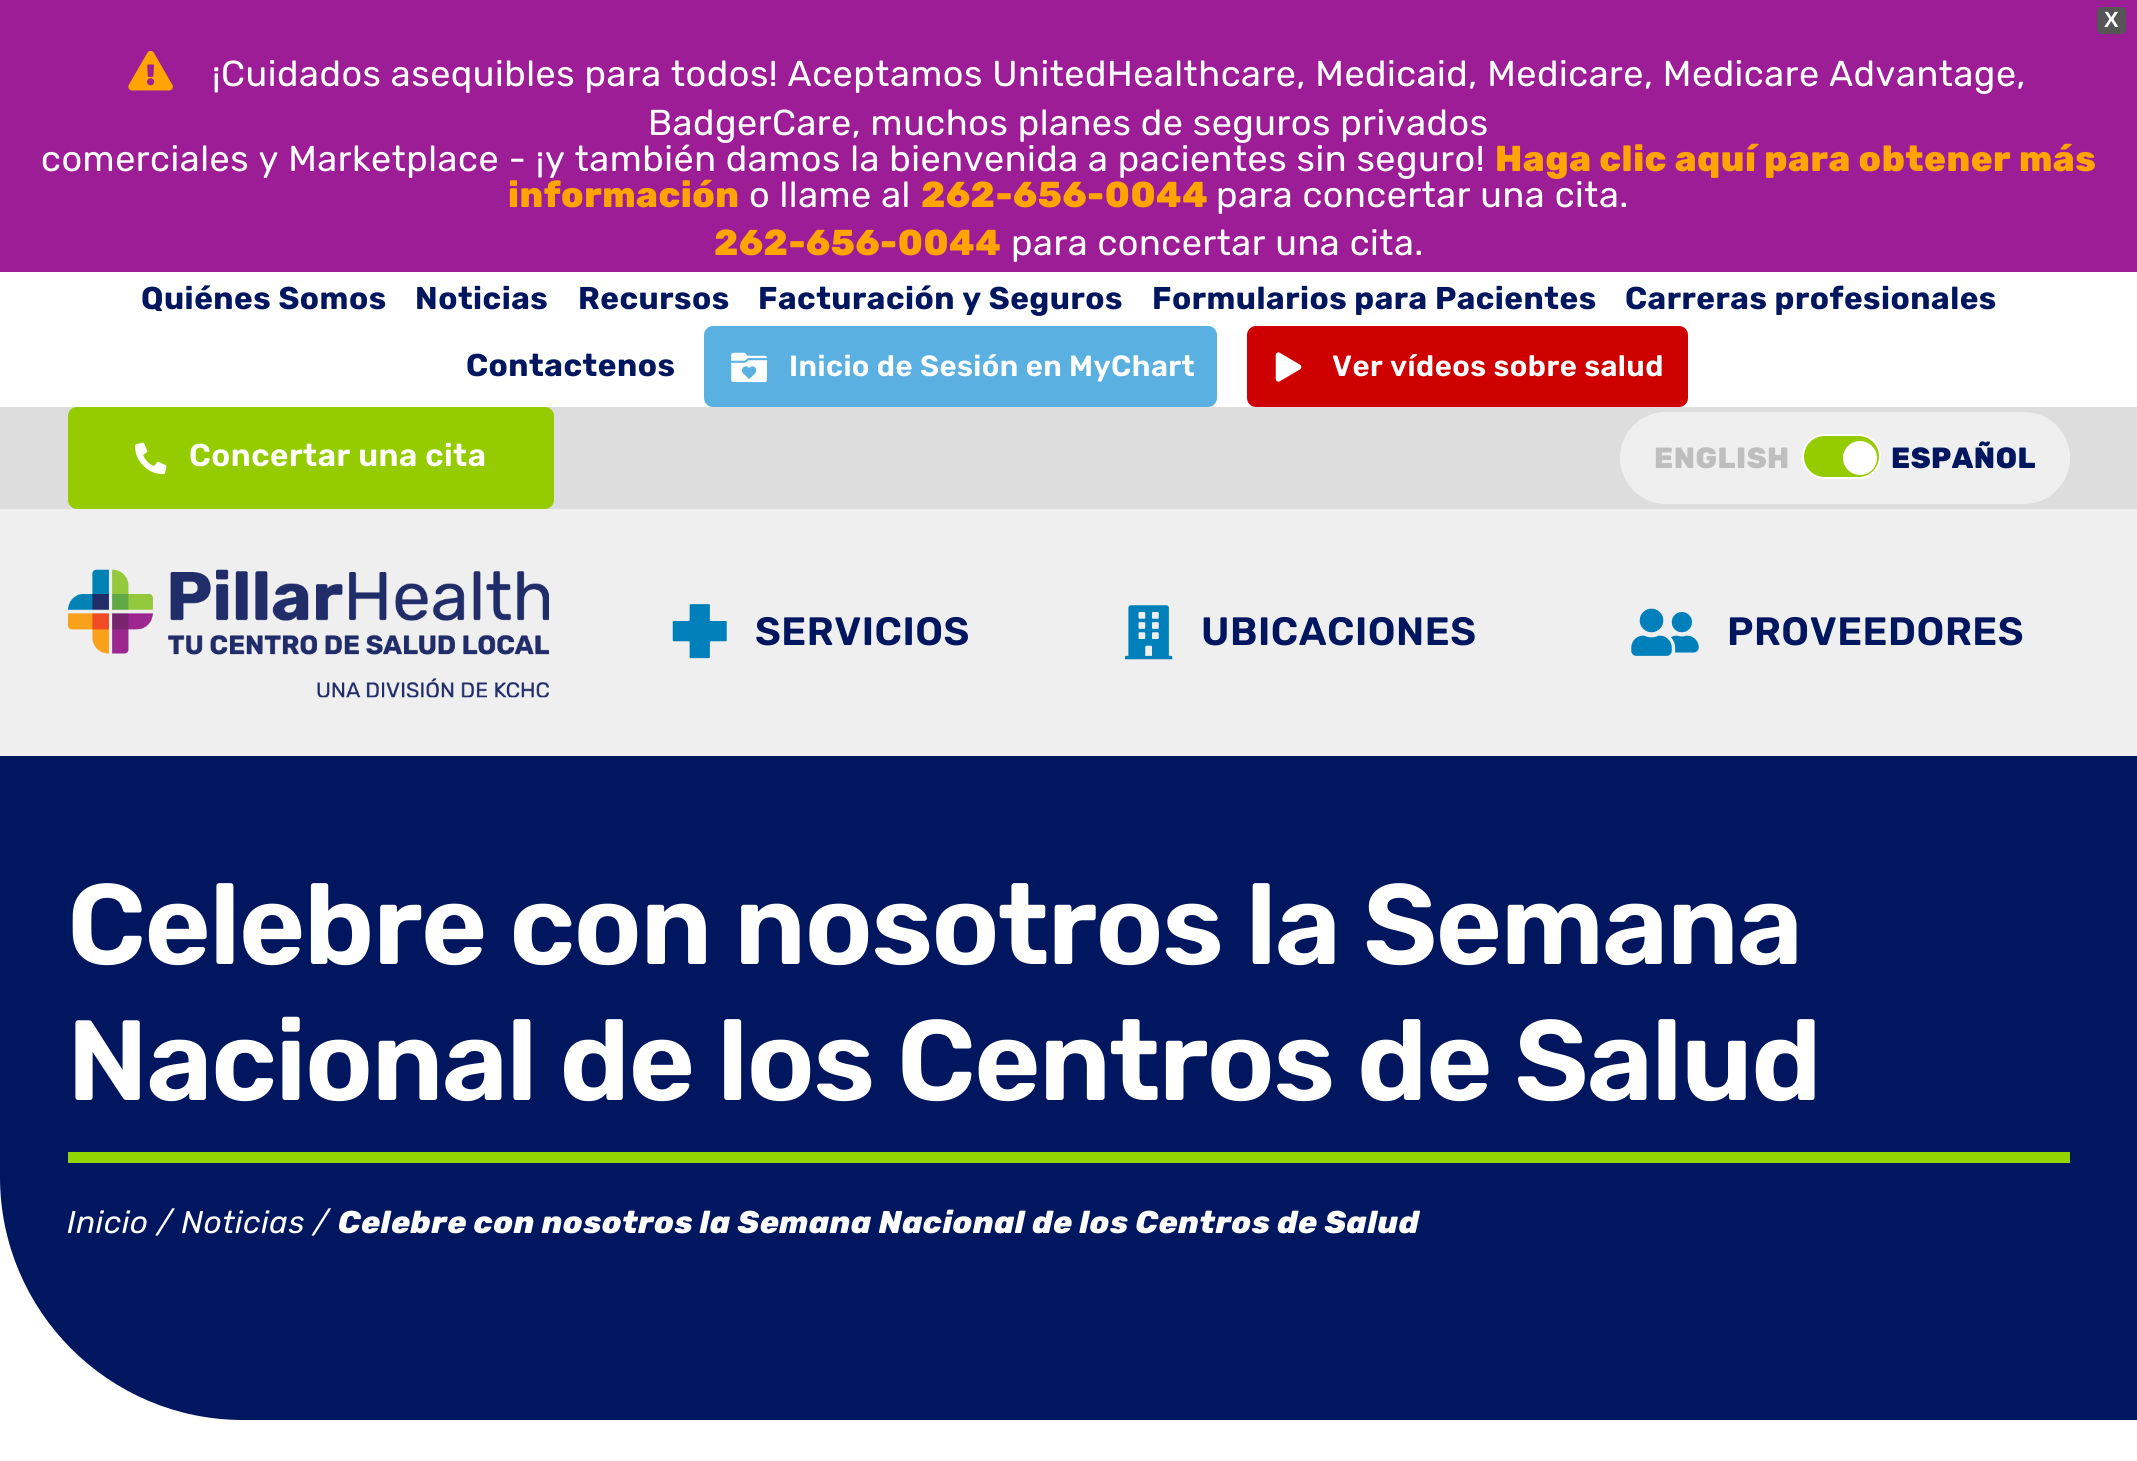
import math
import cairo

surface = cairo.ImageSurface(cairo.FORMAT_RGB24, 2137, 1461)
ctx = cairo.Context(surface)
options = cairo.FontOptions()
options.set_hint_metrics(cairo.HINT_METRICS_OFF)
options.set_hint_style(cairo.HINT_STYLE_NONE)
ctx.set_font_options(options)
ctx.set_miter_limit(4)


def spaced_text(x, y, s, letter, word):
    ctx.move_to(x, y)
    for ch in s:
        ctx.show_text(ch)
        ctx.rel_move_to(letter + word * (ch == ' '), 0)


def round_rect(x, y, w, h, r):
    ctx.new_sub_path()
    for i, (u, v) in enumerate([(x + w - r, y + h - r), (x + r, y + h - r), (x + r, y + r), (x + w - r, y + r)]):
        ctx.arc(u, v, r, i * math.pi / 2, (i + 1) * math.pi / 2)
    ctx.close_path()


def picture(path, x, y, w, h):
    ctx.save()
    ctx.set_source_surface(cairo.ImageSurface.create_from_png(path), x, y)
    ctx.rectangle(x, y, w, h)
    ctx.fill()
    ctx.restore()


ctx.set_source_rgb(1, 1, 1)
ctx.paint()
ctx.set_source_rgb(0.616, 0.114, 0.588)
ctx.rectangle(0, 0, 2137, 272)
ctx.fill()
ctx.set_source_rgb(0.333, 0.333, 0.333)
round_rect(2098, 8, 27, 25, 4)
ctx.fill_preserve()
ctx.stroke()
ctx.select_font_face("Liberation Sans", cairo.FONT_SLANT_NORMAL, cairo.FONT_WEIGHT_BOLD)
ctx.set_font_size(22)
ctx.set_source_rgb(1, 1, 1)
spaced_text(2104, 27, "X", 0.54, 0)
picture("img1.png", 128, 50, 45, 41)
ctx.select_font_face("Rubik")
ctx.set_font_size(36)
spaced_text(212, 86, "¡Cuidados asequibles para todos! Aceptamos UnitedHealthcare, Medicaid, Medicare, Medicare Advantage,", 0.54, 0)
spaced_text(648, 135, "BadgerCare, muchos planes de seguros privados", 0.54, 0)
spaced_text(41, 171, "comerciales y Marketplace - ¡y también damos la bienvenida a pacientes sin seguro!", 0.54, 0)
ctx.select_font_face("Rubik ExtraBold")
ctx.set_source_rgb(1, 0.643, 0)
spaced_text(1495, 171, "Haga clic aquí para obtener más", 0.54, 0)
spaced_text(508, 207, "información", 0.54, 0)
ctx.select_font_face("Rubik")
ctx.set_source_rgb(1, 1, 1)
spaced_text(749, 207, "o llame al", 0.54, 0)
ctx.select_font_face("Rubik ExtraBold")
ctx.set_source_rgb(1, 0.643, 0)
spaced_text(921, 207, "262-656-0044", 0.54, 0)
ctx.select_font_face("Rubik")
ctx.set_source_rgb(1, 1, 1)
spaced_text(1216, 207, "para concertar una cita.", 0.54, 0)
ctx.select_font_face("Rubik ExtraBold")
ctx.set_source_rgb(1, 0.643, 0)
spaced_text(714, 255, "262-656-0044", 0.54, 0)
ctx.select_font_face("Rubik")
ctx.set_source_rgb(1, 1, 1)
spaced_text(1011, 255, "para concertar una cita.", 0.54, 0)
ctx.select_font_face("Rubik", cairo.FONT_SLANT_NORMAL, cairo.FONT_WEIGHT_BOLD)
ctx.set_font_size(31.5)
ctx.set_source_rgb(0, 0.086, 0.373)
spaced_text(141, 309, "Quiénes Somos", 0.5, 0)
spaced_text(415, 309, "Noticias", 0.5, 0)
spaced_text(578, 309, "Recursos", 0.5, 0)
spaced_text(758, 309, "Facturación y Seguros", 0.5, 0)
spaced_text(1152, 309, "Formularios para Pacientes", 0.5, 0)
spaced_text(1625, 309, "Carreras profesionales", 0.5, 0)
spaced_text(466, 376, "Contactenos", 0.5, 0)
ctx.set_source_rgb(0.357, 0.69, 0.886)
round_rect(704, 326, 513, 81, 9)
ctx.fill()
picture("img2.png", 731, 352, 36, 31)
ctx.select_font_face("Rubik SemiBold")
ctx.set_font_size(29.25)
ctx.set_source_rgb(1, 1, 1)
spaced_text(789, 376, "Inicio de Sesión en MyChart", 0.45, 0)
ctx.set_source_rgb(0.808, 0, 0)
round_rect(1247, 326, 441, 81, 9)
ctx.fill()
picture("img3.png", 1275, 352, 27, 30)
ctx.set_source_rgb(1, 1, 1)
spaced_text(1332, 376, "Ver vídeos sobre salud", 0.45, 0)
ctx.set_source_rgb(0.867, 0.867, 0.867)
ctx.rectangle(0, 407, 2137, 102)
ctx.fill()
ctx.set_source_rgb(0.58, 0.8, 0)
round_rect(69, 408, 484, 100, 8)
ctx.fill_preserve()
ctx.stroke()
picture("img4.png", 135, 442, 32, 33)
ctx.set_font_size(31.5)
ctx.set_source_rgb(1, 1, 1)
spaced_text(189, 466, "Concertar una cita", 0.5, 0)
ctx.set_source_rgb(0.937, 0.937, 0.937)
round_rect(1620, 412, 450, 92, 46)
ctx.fill()
ctx.select_font_face("Rubik ExtraBold")
ctx.set_font_size(29.25)
ctx.set_source_rgb(0.745, 0.745, 0.745)
spaced_text(1654, 468, "ENGLISH", 0.54, 0)
ctx.set_source_rgb(0.58, 0.8, 0)
round_rect(1803, 435, 77, 43, 21.5)
ctx.fill_preserve()
ctx.set_source_rgb(1, 1, 1)
ctx.stroke()
ctx.arc(1860, 458, 17, 0, 2 * math.pi)
ctx.fill()
ctx.set_source_rgb(0, 0.086, 0.373)
spaced_text(1891, 468, "ESPAÑOL", 0.54, 0)
ctx.set_source_rgb(0.937, 0.937, 0.937)
ctx.rectangle(0, 509, 2137, 247)
ctx.fill()
picture("img5.png", 67, 569, 482, 129)
picture("img6.png", 672, 604, 55, 55)
ctx.select_font_face("Rubik SemiBold")
ctx.set_font_size(39.5)
ctx.set_source_rgb(0, 0.086, 0.373)
spaced_text(755, 645, "SERVICIOS", 0.54, 0)
picture("img7.png", 1125, 605, 48, 55)
spaced_text(1201, 645, "UBICACIONES", 0.54, 0)
picture("img8.png", 1631, 608, 68, 48)
spaced_text(1727, 645, "PROVEEDORES", 0.54, 0)
ctx.new_path()
ctx.move_to(0, 756)
ctx.line_to(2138, 756)
ctx.line_to(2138, 1420)
ctx.line_to(243, 1420)
ctx.curve_to(109, 1420, 0, 1311, 0, 1177)
ctx.close_path()
ctx.fill()
ctx.set_source_rgb(0.576, 0.835, 0)
ctx.rectangle(68, 1152, 2002, 11)
ctx.fill()
ctx.set_font_size(113.9)
ctx.set_source_rgb(1, 1, 1)
spaced_text(67, 964, "Celebre con nosotros la Semana", -1.7, 0)
spaced_text(67, 1100, "Nacional de los Centros de Salud", -1.7, 0)
ctx.select_font_face("Rubik", cairo.FONT_SLANT_ITALIC)
ctx.set_font_size(31.5)
spaced_text(67, 1233, "Inicio / Noticias /", 0.54, 0)
ctx.select_font_face("Rubik ExtraBold", cairo.FONT_SLANT_ITALIC)
spaced_text(338, 1233, "Celebre con nosotros la Semana Nacional de los Centros de Salud", 0.54, 0)
surface.write_to_png("page.png")
